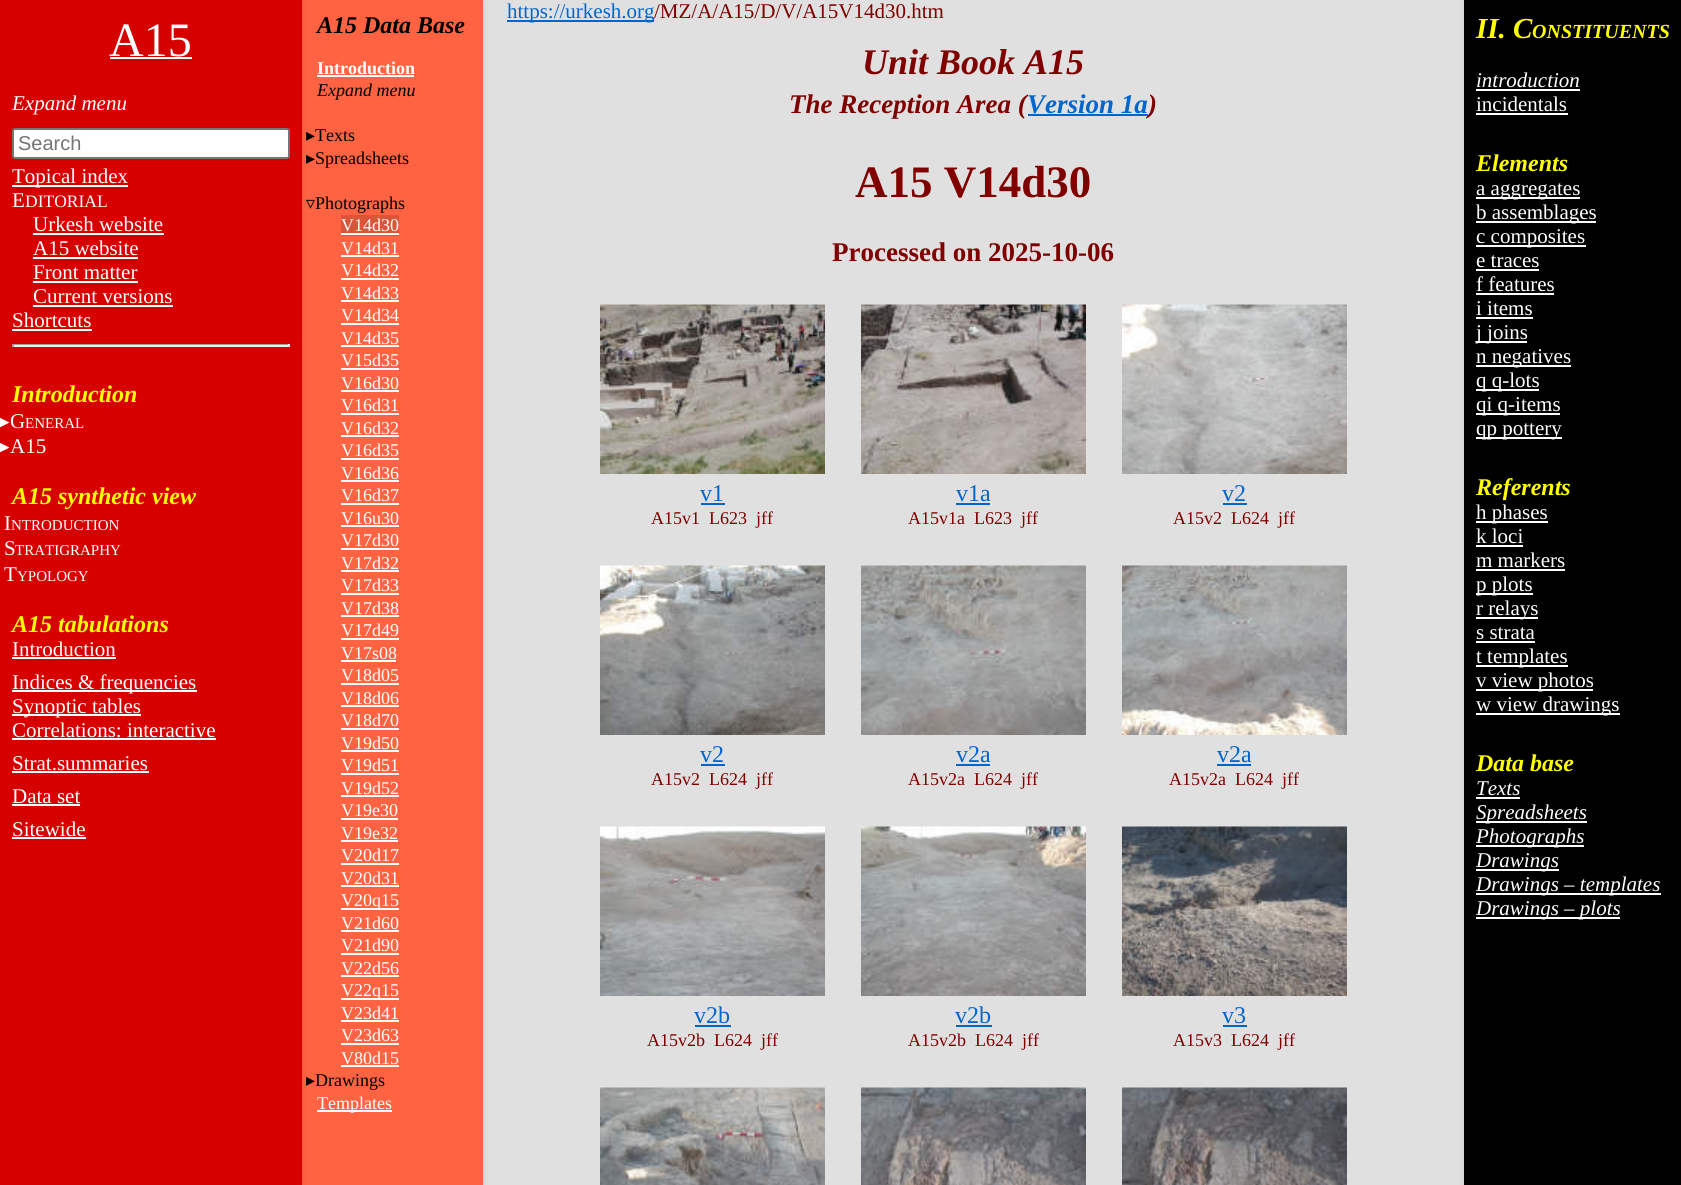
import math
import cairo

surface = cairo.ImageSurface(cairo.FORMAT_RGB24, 1681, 1185)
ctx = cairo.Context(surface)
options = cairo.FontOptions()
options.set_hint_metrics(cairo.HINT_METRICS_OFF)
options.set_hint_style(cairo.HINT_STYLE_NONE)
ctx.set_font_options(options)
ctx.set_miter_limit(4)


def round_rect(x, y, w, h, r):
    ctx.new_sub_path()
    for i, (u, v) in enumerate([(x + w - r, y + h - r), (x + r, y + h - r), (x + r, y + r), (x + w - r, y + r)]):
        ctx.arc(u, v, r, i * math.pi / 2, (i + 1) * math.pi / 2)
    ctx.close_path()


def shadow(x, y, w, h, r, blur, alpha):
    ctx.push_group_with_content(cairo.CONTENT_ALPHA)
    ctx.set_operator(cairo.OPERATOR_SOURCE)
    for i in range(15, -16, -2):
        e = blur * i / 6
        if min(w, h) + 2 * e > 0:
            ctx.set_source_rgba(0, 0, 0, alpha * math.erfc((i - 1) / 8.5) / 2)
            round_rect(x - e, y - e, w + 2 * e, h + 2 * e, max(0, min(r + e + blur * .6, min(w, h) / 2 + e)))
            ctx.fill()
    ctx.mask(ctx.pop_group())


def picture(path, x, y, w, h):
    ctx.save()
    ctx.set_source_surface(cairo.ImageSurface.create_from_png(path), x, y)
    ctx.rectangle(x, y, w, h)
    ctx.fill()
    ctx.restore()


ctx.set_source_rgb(0.878, 0.878, 0.878)
ctx.paint()
ctx.set_source_rgb(0, 0, 0)
shadow(302, 0, 181, 1185, 0, 3, 0.1)
ctx.set_source_rgb(1, 0.388, 0.259)
ctx.rectangle(302, 0, 181, 1185)
ctx.fill()
ctx.set_source_rgb(0, 0, 0)
shadow(0, 0, 302, 1185, 0, 3, 0.1)
ctx.set_source_rgb(0.839, 0, 0)
ctx.rectangle(0, 0, 302, 1185)
ctx.fill()
ctx.select_font_face("Liberation Serif")
ctx.set_font_size(48)
ctx.set_source_rgb(1, 1, 1)
ctx.move_to(109, 56)
ctx.show_text("A15")
ctx.rectangle(110, 57, 82, 2)
ctx.fill()
ctx.select_font_face("Liberation Serif", cairo.FONT_SLANT_ITALIC)
ctx.set_font_size(21)
ctx.move_to(12, 110)
ctx.show_text("Expand menu")
round_rect(13, 129, 276, 29, 2)
ctx.fill_preserve()
ctx.set_source_rgb(0.463, 0.463, 0.463)
ctx.stroke()
ctx.select_font_face("Liberation Sans")
ctx.set_font_size(20)
ctx.set_source_rgb(0.459, 0.459, 0.459)
ctx.move_to(18, 150)
ctx.show_text("Search")
ctx.set_source_rgb(1, 1, 1)
ctx.rectangle(12, 185, 116, 2)
ctx.fill()
ctx.select_font_face("Liberation Serif")
ctx.set_font_size(21)
ctx.move_to(12, 183)
ctx.show_text("Topical index")
ctx.move_to(12, 207)
ctx.show_text("E")
ctx.set_font_size(17.5)
ctx.move_to(25, 207)
ctx.show_text("DITORIAL")
ctx.set_font_size(21)
ctx.move_to(33, 231)
ctx.show_text("Urkesh website")
ctx.rectangle(33, 233, 131, 2)
ctx.fill()
ctx.move_to(33, 255)
ctx.show_text("A15 website")
ctx.rectangle(33, 257, 105, 2)
ctx.fill()
ctx.move_to(33, 279)
ctx.show_text("Front matter")
ctx.rectangle(33, 281, 105, 2)
ctx.fill()
ctx.move_to(33, 303)
ctx.show_text("Current versions")
ctx.rectangle(33, 305, 140, 2)
ctx.fill()
ctx.move_to(12, 327)
ctx.show_text("Shortcuts")
ctx.rectangle(12, 329, 80, 2)
ctx.fill()
ctx.set_source_rgb(0.624, 0.624, 0.624)
ctx.rectangle(12, 344, 278, 1)
ctx.fill()
ctx.set_source_rgb(0.933, 0.933, 0.933)
ctx.rectangle(288, 344, 2, 3)
ctx.fill()
ctx.rectangle(12, 345, 278, 2)
ctx.fill()
ctx.set_source_rgb(0.624, 0.624, 0.624)
ctx.rectangle(12, 344, 2, 3)
ctx.fill()
ctx.select_font_face("Liberation Serif", cairo.FONT_SLANT_ITALIC, cairo.FONT_WEIGHT_BOLD)
ctx.set_font_size(24)
ctx.set_source_rgb(1, 1, 0)
ctx.move_to(12, 402)
ctx.show_text("Introduction")
ctx.select_font_face("DejaVu Sans")
ctx.set_font_size(21)
ctx.set_source_rgb(1, 1, 1)
ctx.move_to(-1, 428)
ctx.show_text("▸")
ctx.select_font_face("Liberation Serif")
ctx.move_to(10, 428)
ctx.show_text("G")
ctx.set_font_size(15)
ctx.move_to(25, 428)
ctx.show_text("ENERAL")
ctx.select_font_face("DejaVu Sans")
ctx.set_font_size(21)
ctx.move_to(-1, 453)
ctx.show_text("▸")
ctx.select_font_face("Liberation Serif")
ctx.move_to(10, 453)
ctx.show_text("A15")
ctx.select_font_face("Liberation Serif", cairo.FONT_SLANT_ITALIC, cairo.FONT_WEIGHT_BOLD)
ctx.set_font_size(24)
ctx.set_source_rgb(1, 1, 0)
ctx.move_to(12, 504)
ctx.show_text("A15 synthetic view")
ctx.select_font_face("Liberation Serif")
ctx.set_font_size(21)
ctx.set_source_rgb(1, 1, 1)
ctx.move_to(4, 530)
ctx.show_text("I")
ctx.set_font_size(15)
ctx.move_to(11, 530)
ctx.show_text("NTRODUCTION")
ctx.set_font_size(21)
ctx.move_to(4, 555)
ctx.show_text("S")
ctx.set_font_size(15)
ctx.move_to(15, 555)
ctx.show_text("TRATIGRAPHY")
ctx.set_font_size(21)
ctx.move_to(4, 581)
ctx.show_text("T")
ctx.set_font_size(15)
ctx.move_to(17, 581)
ctx.show_text("YPOLOGY")
ctx.select_font_face("Liberation Serif", cairo.FONT_SLANT_ITALIC, cairo.FONT_WEIGHT_BOLD)
ctx.set_font_size(24)
ctx.set_source_rgb(1, 1, 0)
ctx.move_to(12, 632)
ctx.show_text("A15 tabulations")
ctx.select_font_face("Liberation Serif")
ctx.set_font_size(21)
ctx.set_source_rgb(1, 1, 1)
ctx.move_to(12, 656)
ctx.show_text("Introduction")
ctx.rectangle(12, 657, 104, 2)
ctx.fill()
ctx.rectangle(12, 690, 185, 2)
ctx.fill()
ctx.move_to(12, 689)
ctx.show_text("Indices & frequencies")
ctx.rectangle(12, 714, 129, 2)
ctx.fill()
ctx.move_to(12, 713)
ctx.show_text("Synoptic tables")
ctx.move_to(12, 737)
ctx.show_text("Correlations: interactive")
ctx.rectangle(12, 738, 204, 2)
ctx.fill()
ctx.move_to(12, 770)
ctx.show_text("Strat.summaries")
ctx.rectangle(12, 771, 137, 2)
ctx.fill()
ctx.move_to(12, 803)
ctx.show_text("Data set")
ctx.rectangle(12, 804, 68, 2)
ctx.fill()
ctx.move_to(12, 836)
ctx.show_text("Sitewide")
ctx.rectangle(12, 837, 74, 2)
ctx.fill()
ctx.select_font_face("Liberation Serif", cairo.FONT_SLANT_ITALIC, cairo.FONT_WEIGHT_BOLD)
ctx.set_font_size(24)
ctx.set_source_rgb(0, 0, 0)
ctx.move_to(317, 33)
ctx.show_text("A15 Data Base")
ctx.select_font_face("Liberation Serif", cairo.FONT_SLANT_NORMAL, cairo.FONT_WEIGHT_BOLD)
ctx.set_font_size(18)
ctx.set_source_rgb(1, 1, 1)
ctx.move_to(317, 74)
ctx.show_text("Introduction")
ctx.rectangle(317, 75, 97, 2)
ctx.fill()
ctx.select_font_face("Liberation Serif", cairo.FONT_SLANT_ITALIC)
ctx.set_source_rgb(0, 0, 0)
ctx.move_to(317, 96)
ctx.show_text("Expand menu")
ctx.select_font_face("DejaVu Sans")
ctx.move_to(306, 141)
ctx.show_text("▸")
ctx.select_font_face("Liberation Serif")
ctx.move_to(315, 141)
ctx.show_text("Texts")
ctx.select_font_face("DejaVu Sans")
ctx.move_to(306, 164)
ctx.show_text("▸")
ctx.select_font_face("Liberation Serif")
ctx.move_to(315, 164)
ctx.show_text("Spreadsheets")
ctx.select_font_face("DejaVu Sans")
ctx.move_to(306, 209)
ctx.show_text("▿")
ctx.select_font_face("Liberation Serif")
ctx.move_to(315, 209)
ctx.show_text("Photographs")
ctx.set_source_rgb(0.859, 0.333, 0.224)
ctx.rectangle(341, 215, 58, 21)
ctx.fill()
ctx.set_source_rgb(1, 1, 1)
ctx.move_to(341, 231)
ctx.show_text("V14d30")
ctx.rectangle(341, 233, 58, 2)
ctx.fill()
ctx.move_to(341, 254)
ctx.show_text("V14d31")
ctx.rectangle(341, 255, 58, 2)
ctx.fill()
ctx.move_to(341, 276)
ctx.show_text("V14d32")
ctx.rectangle(341, 278, 58, 2)
ctx.fill()
ctx.move_to(341, 299)
ctx.show_text("V14d33")
ctx.rectangle(341, 300, 58, 2)
ctx.fill()
ctx.move_to(341, 321)
ctx.show_text("V14d34")
ctx.rectangle(341, 323, 58, 2)
ctx.fill()
ctx.move_to(341, 344)
ctx.show_text("V14d35")
ctx.rectangle(341, 345, 58, 2)
ctx.fill()
ctx.move_to(341, 366)
ctx.show_text("V15d35")
ctx.rectangle(341, 368, 58, 2)
ctx.fill()
ctx.move_to(341, 389)
ctx.show_text("V16d30")
ctx.rectangle(341, 390, 58, 2)
ctx.fill()
ctx.move_to(341, 411)
ctx.show_text("V16d31")
ctx.rectangle(341, 413, 58, 2)
ctx.fill()
ctx.move_to(341, 434)
ctx.show_text("V16d32")
ctx.rectangle(341, 435, 58, 2)
ctx.fill()
ctx.move_to(341, 456)
ctx.show_text("V16d35")
ctx.rectangle(341, 458, 58, 2)
ctx.fill()
ctx.move_to(341, 479)
ctx.show_text("V16d36")
ctx.rectangle(341, 480, 58, 2)
ctx.fill()
ctx.move_to(341, 501)
ctx.show_text("V16d37")
ctx.rectangle(341, 503, 58, 2)
ctx.fill()
ctx.move_to(341, 524)
ctx.show_text("V16u30")
ctx.rectangle(341, 525, 58, 2)
ctx.fill()
ctx.move_to(341, 546)
ctx.show_text("V17d30")
ctx.rectangle(341, 548, 58, 2)
ctx.fill()
ctx.move_to(341, 569)
ctx.show_text("V17d32")
ctx.rectangle(341, 570, 58, 2)
ctx.fill()
ctx.move_to(341, 591)
ctx.show_text("V17d33")
ctx.rectangle(341, 593, 58, 2)
ctx.fill()
ctx.move_to(341, 614)
ctx.show_text("V17d38")
ctx.rectangle(341, 615, 58, 2)
ctx.fill()
ctx.move_to(341, 636)
ctx.show_text("V17d49")
ctx.rectangle(341, 638, 58, 2)
ctx.fill()
ctx.move_to(341, 659)
ctx.show_text("V17s08")
ctx.rectangle(341, 660, 55, 2)
ctx.fill()
ctx.move_to(341, 681)
ctx.show_text("V18d05")
ctx.rectangle(341, 683, 58, 2)
ctx.fill()
ctx.move_to(341, 704)
ctx.show_text("V18d06")
ctx.rectangle(341, 705, 58, 2)
ctx.fill()
ctx.move_to(341, 726)
ctx.show_text("V18d70")
ctx.rectangle(341, 728, 58, 2)
ctx.fill()
ctx.move_to(341, 749)
ctx.show_text("V19d50")
ctx.rectangle(341, 750, 58, 2)
ctx.fill()
ctx.move_to(341, 771)
ctx.show_text("V19d51")
ctx.rectangle(341, 773, 58, 2)
ctx.fill()
ctx.move_to(341, 794)
ctx.show_text("V19d52")
ctx.rectangle(341, 795, 58, 2)
ctx.fill()
ctx.move_to(341, 816)
ctx.show_text("V19e30")
ctx.rectangle(341, 818, 57, 2)
ctx.fill()
ctx.move_to(341, 839)
ctx.show_text("V19e32")
ctx.rectangle(341, 840, 57, 2)
ctx.fill()
ctx.move_to(341, 861)
ctx.show_text("V20d17")
ctx.rectangle(341, 863, 58, 2)
ctx.fill()
ctx.move_to(341, 884)
ctx.show_text("V20d31")
ctx.rectangle(341, 885, 58, 2)
ctx.fill()
ctx.rectangle(341, 908, 58, 2)
ctx.fill()
ctx.move_to(341, 906)
ctx.show_text("V20q15")
ctx.move_to(341, 929)
ctx.show_text("V21d60")
ctx.rectangle(341, 930, 58, 2)
ctx.fill()
ctx.move_to(341, 951)
ctx.show_text("V21d90")
ctx.rectangle(341, 953, 58, 2)
ctx.fill()
ctx.move_to(341, 974)
ctx.show_text("V22d56")
ctx.rectangle(341, 975, 58, 2)
ctx.fill()
ctx.rectangle(341, 998, 58, 2)
ctx.fill()
ctx.move_to(341, 996)
ctx.show_text("V22q15")
ctx.move_to(341, 1019)
ctx.show_text("V23d41")
ctx.rectangle(341, 1020, 58, 2)
ctx.fill()
ctx.move_to(341, 1041)
ctx.show_text("V23d63")
ctx.rectangle(341, 1043, 58, 2)
ctx.fill()
ctx.move_to(341, 1064)
ctx.show_text("V80d15")
ctx.rectangle(341, 1065, 58, 2)
ctx.fill()
ctx.select_font_face("DejaVu Sans")
ctx.set_source_rgb(0, 0, 0)
ctx.move_to(306, 1086)
ctx.show_text("▸")
ctx.select_font_face("Liberation Serif")
ctx.move_to(315, 1086)
ctx.show_text("Drawings")
ctx.set_source_rgb(1, 1, 1)
ctx.rectangle(317, 1110, 75, 2)
ctx.fill()
ctx.move_to(317, 1109)
ctx.show_text("Templates")
ctx.set_source_rgb(0, 0.4, 0.8)
ctx.rectangle(507, 20, 147, 2)
ctx.fill()
ctx.set_font_size(21)
ctx.move_to(507, 18)
ctx.show_text("https://urkesh.org")
ctx.set_source_rgb(0.502, 0, 0)
ctx.move_to(654, 18)
ctx.show_text("/MZ/A/A15/D/V/A15V14d30.htm")
ctx.select_font_face("Liberation Serif", cairo.FONT_SLANT_ITALIC, cairo.FONT_WEIGHT_BOLD)
ctx.set_font_size(36)
ctx.move_to(862, 74)
ctx.show_text("Unit Book A15")
ctx.set_font_size(27)
ctx.move_to(789, 113)
ctx.show_text("The Reception Area (")
ctx.set_source_rgb(0, 0.4, 0.8)
ctx.rectangle(1028, 114, 120, 2)
ctx.fill()
ctx.move_to(1027, 113)
ctx.show_text("Version 1a")
ctx.set_source_rgb(0.502, 0, 0)
ctx.move_to(1148, 113)
ctx.show_text(")")
ctx.select_font_face("Liberation Serif", cairo.FONT_SLANT_NORMAL, cairo.FONT_WEIGHT_BOLD)
ctx.set_font_size(45)
ctx.move_to(855, 197)
ctx.show_text("A15 V14d30")
ctx.set_font_size(27)
ctx.move_to(832, 261)
ctx.show_text("Processed on 2025-10-06")
picture("img1.png", 600, 304, 225, 170)
ctx.select_font_face("Liberation Serif")
ctx.set_font_size(24)
ctx.set_source_rgb(0, 0.4, 0.8)
ctx.move_to(700, 501)
ctx.show_text("v1")
ctx.rectangle(701, 503, 24, 2)
ctx.fill()
ctx.set_font_size(18)
ctx.set_source_rgb(0.502, 0, 0)
ctx.move_to(651, 524)
ctx.show_text("A15v1  L623  jff")
picture("img2.png", 861, 304, 225, 170)
ctx.set_font_size(24)
ctx.set_source_rgb(0, 0.4, 0.8)
ctx.move_to(956, 501)
ctx.show_text("v1a")
ctx.rectangle(956, 503, 34, 2)
ctx.fill()
ctx.set_font_size(18)
ctx.set_source_rgb(0.502, 0, 0)
ctx.move_to(908, 524)
ctx.show_text("A15v1a  L623  jff")
picture("img3.png", 1122, 304, 225, 170)
ctx.set_font_size(24)
ctx.set_source_rgb(0, 0.4, 0.8)
ctx.move_to(1222, 501)
ctx.show_text("v2")
ctx.rectangle(1223, 503, 24, 2)
ctx.fill()
ctx.set_font_size(18)
ctx.set_source_rgb(0.502, 0, 0)
ctx.move_to(1173, 524)
ctx.show_text("A15v2  L624  jff")
picture("img4.png", 600, 565, 225, 170)
ctx.set_font_size(24)
ctx.set_source_rgb(0, 0.4, 0.8)
ctx.move_to(700, 762)
ctx.show_text("v2")
ctx.rectangle(701, 764, 24, 2)
ctx.fill()
ctx.set_font_size(18)
ctx.set_source_rgb(0.502, 0, 0)
ctx.move_to(651, 785)
ctx.show_text("A15v2  L624  jff")
picture("img5.png", 861, 565, 225, 170)
ctx.set_font_size(24)
ctx.set_source_rgb(0, 0.4, 0.8)
ctx.move_to(956, 762)
ctx.show_text("v2a")
ctx.rectangle(956, 764, 34, 2)
ctx.fill()
ctx.set_font_size(18)
ctx.set_source_rgb(0.502, 0, 0)
ctx.move_to(908, 785)
ctx.show_text("A15v2a  L624  jff")
picture("img6.png", 1122, 565, 225, 170)
ctx.set_font_size(24)
ctx.set_source_rgb(0, 0.4, 0.8)
ctx.move_to(1217, 762)
ctx.show_text("v2a")
ctx.rectangle(1217, 764, 34, 2)
ctx.fill()
ctx.set_font_size(18)
ctx.set_source_rgb(0.502, 0, 0)
ctx.move_to(1169, 785)
ctx.show_text("A15v2a  L624  jff")
picture("img7.png", 600, 826, 225, 170)
ctx.set_font_size(24)
ctx.set_source_rgb(0, 0.4, 0.8)
ctx.move_to(694, 1023)
ctx.show_text("v2b")
ctx.rectangle(695, 1025, 36, 2)
ctx.fill()
ctx.set_font_size(18)
ctx.set_source_rgb(0.502, 0, 0)
ctx.move_to(647, 1046)
ctx.show_text("A15v2b  L624  jff")
picture("img8.png", 861, 826, 225, 170)
ctx.set_font_size(24)
ctx.set_source_rgb(0, 0.4, 0.8)
ctx.move_to(955, 1023)
ctx.show_text("v2b")
ctx.rectangle(956, 1025, 36, 2)
ctx.fill()
ctx.set_font_size(18)
ctx.set_source_rgb(0.502, 0, 0)
ctx.move_to(908, 1046)
ctx.show_text("A15v2b  L624  jff")
picture("img9.png", 1122, 826, 225, 170)
ctx.set_font_size(24)
ctx.set_source_rgb(0, 0.4, 0.8)
ctx.move_to(1222, 1023)
ctx.show_text("v3")
ctx.rectangle(1223, 1025, 24, 2)
ctx.fill()
ctx.set_font_size(18)
ctx.set_source_rgb(0.502, 0, 0)
ctx.move_to(1173, 1046)
ctx.show_text("A15v3  L624  jff")
picture("img10.png", 600, 1087, 225, 98)
picture("img11.png", 861, 1087, 225, 98)
picture("img12.png", 1122, 1087, 225, 98)
ctx.set_source_rgb(0, 0, 0)
shadow(1464, 0, 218, 1185, 0, 3, 0.1)
ctx.set_source_rgb(0, 0, 0)
ctx.rectangle(1464, 0, 217, 1185)
ctx.fill()
ctx.select_font_face("Liberation Serif", cairo.FONT_SLANT_ITALIC, cairo.FONT_WEIGHT_BOLD)
ctx.set_font_size(29)
ctx.set_source_rgb(1, 1, 0)
ctx.move_to(1476, 38)
ctx.show_text("II. C")
ctx.set_font_size(20)
ctx.move_to(1532, 38)
ctx.show_text("ONSTITUENTS")
ctx.select_font_face("Liberation Serif", cairo.FONT_SLANT_ITALIC)
ctx.set_font_size(21)
ctx.set_source_rgb(1, 1, 1)
ctx.move_to(1476, 87)
ctx.show_text("introduction")
ctx.rectangle(1476, 89, 104, 2)
ctx.fill()
ctx.select_font_face("Liberation Serif")
ctx.move_to(1476, 111)
ctx.show_text("incidentals")
ctx.rectangle(1476, 113, 92, 2)
ctx.fill()
ctx.select_font_face("Liberation Serif", cairo.FONT_SLANT_ITALIC, cairo.FONT_WEIGHT_BOLD)
ctx.set_font_size(24)
ctx.set_source_rgb(1, 1, 0)
ctx.move_to(1476, 171)
ctx.show_text("Elements")
ctx.set_source_rgb(1, 1, 1)
ctx.rectangle(1476, 197, 104, 2)
ctx.fill()
ctx.select_font_face("Liberation Serif")
ctx.set_font_size(21)
ctx.move_to(1476, 195)
ctx.show_text("a aggregates")
ctx.rectangle(1476, 221, 120, 2)
ctx.fill()
ctx.move_to(1476, 219)
ctx.show_text("b assemblages")
ctx.rectangle(1476, 245, 110, 2)
ctx.fill()
ctx.move_to(1476, 243)
ctx.show_text("c composites")
ctx.move_to(1476, 267)
ctx.show_text("e traces")
ctx.rectangle(1476, 269, 63, 2)
ctx.fill()
ctx.move_to(1476, 291)
ctx.show_text("f features")
ctx.rectangle(1476, 293, 78, 2)
ctx.fill()
ctx.move_to(1476, 315)
ctx.show_text("i items")
ctx.rectangle(1476, 317, 57, 2)
ctx.fill()
ctx.rectangle(1476, 341, 51, 2)
ctx.fill()
ctx.move_to(1476, 339)
ctx.show_text("j joins")
ctx.rectangle(1476, 365, 95, 2)
ctx.fill()
ctx.move_to(1476, 363)
ctx.show_text("n negatives")
ctx.rectangle(1476, 389, 63, 2)
ctx.fill()
ctx.move_to(1476, 387)
ctx.show_text("q q-lots")
ctx.rectangle(1476, 413, 84, 2)
ctx.fill()
ctx.move_to(1476, 411)
ctx.show_text("qi q-items")
ctx.rectangle(1476, 437, 86, 2)
ctx.fill()
ctx.move_to(1476, 435)
ctx.show_text("qp pottery")
ctx.select_font_face("Liberation Serif", cairo.FONT_SLANT_ITALIC, cairo.FONT_WEIGHT_BOLD)
ctx.set_font_size(24)
ctx.set_source_rgb(1, 1, 0)
ctx.move_to(1476, 495)
ctx.show_text("Referents")
ctx.set_source_rgb(1, 1, 1)
ctx.rectangle(1476, 521, 72, 2)
ctx.fill()
ctx.select_font_face("Liberation Serif")
ctx.set_font_size(21)
ctx.move_to(1476, 519)
ctx.show_text("h phases")
ctx.move_to(1476, 543)
ctx.show_text("k loci")
ctx.rectangle(1476, 545, 47, 2)
ctx.fill()
ctx.move_to(1476, 567)
ctx.show_text("m markers")
ctx.rectangle(1476, 569, 89, 2)
ctx.fill()
ctx.rectangle(1476, 593, 57, 2)
ctx.fill()
ctx.move_to(1476, 591)
ctx.show_text("p plots")
ctx.rectangle(1476, 617, 62, 2)
ctx.fill()
ctx.move_to(1476, 615)
ctx.show_text("r relays")
ctx.move_to(1476, 639)
ctx.show_text("s strata")
ctx.rectangle(1476, 641, 59, 2)
ctx.fill()
ctx.rectangle(1476, 665, 92, 2)
ctx.fill()
ctx.move_to(1476, 663)
ctx.show_text("t templates")
ctx.rectangle(1476, 689, 117, 2)
ctx.fill()
ctx.move_to(1476, 687)
ctx.show_text("v view photos")
ctx.rectangle(1476, 713, 144, 2)
ctx.fill()
ctx.move_to(1476, 711)
ctx.show_text("w view drawings")
ctx.select_font_face("Liberation Serif", cairo.FONT_SLANT_ITALIC, cairo.FONT_WEIGHT_BOLD)
ctx.set_font_size(24)
ctx.set_source_rgb(1, 1, 0)
ctx.move_to(1476, 771)
ctx.show_text("Data base")
ctx.select_font_face("Liberation Serif", cairo.FONT_SLANT_ITALIC)
ctx.set_font_size(21)
ctx.set_source_rgb(1, 1, 1)
ctx.move_to(1476, 795)
ctx.show_text("Texts")
ctx.rectangle(1476, 797, 44, 2)
ctx.fill()
ctx.rectangle(1476, 821, 111, 2)
ctx.fill()
ctx.move_to(1476, 819)
ctx.show_text("Spreadsheets")
ctx.rectangle(1476, 845, 108, 2)
ctx.fill()
ctx.move_to(1476, 843)
ctx.show_text("Photographs")
ctx.rectangle(1476, 869, 83, 2)
ctx.fill()
ctx.move_to(1476, 867)
ctx.show_text("Drawings")
ctx.rectangle(1476, 893, 185, 2)
ctx.fill()
ctx.move_to(1476, 891)
ctx.show_text("Drawings – templates")
ctx.rectangle(1476, 917, 144, 2)
ctx.fill()
ctx.move_to(1476, 915)
ctx.show_text("Drawings – plots")
surface.write_to_png("page.png")
